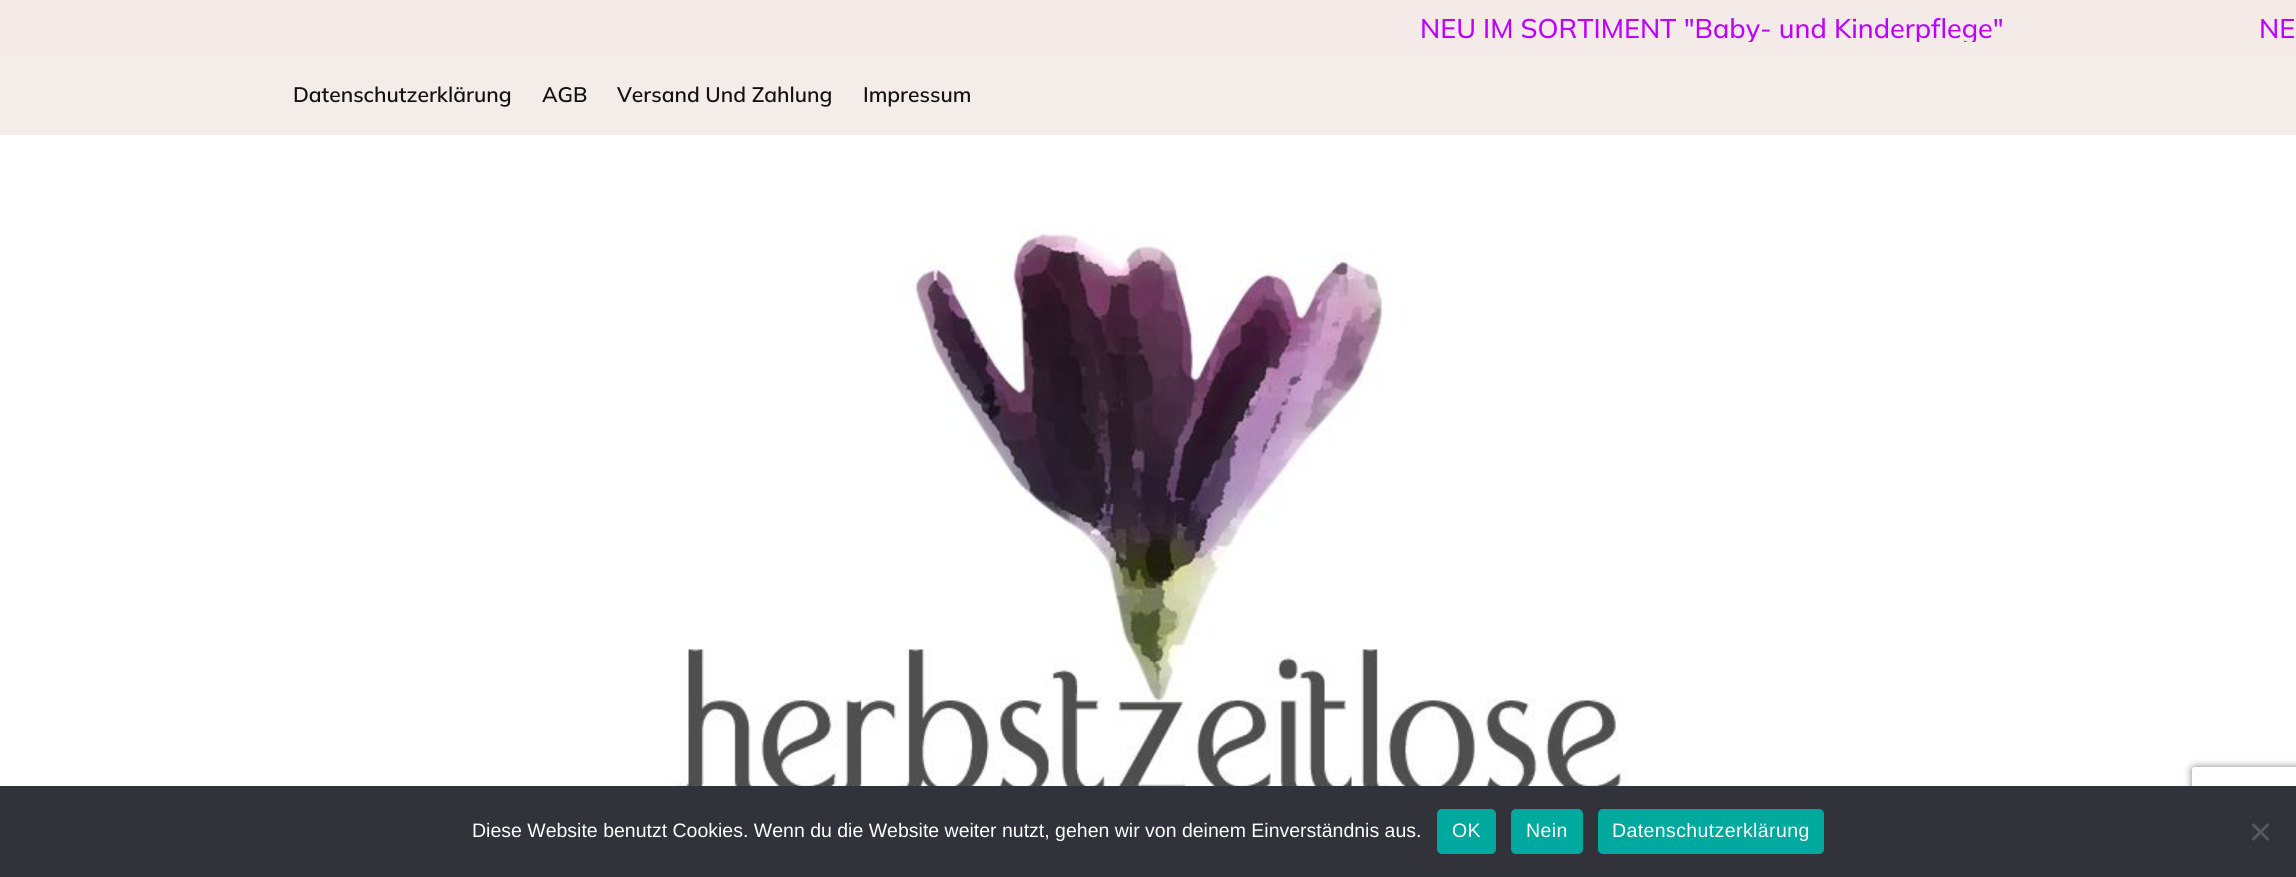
import math
import cairo

surface = cairo.ImageSurface(cairo.FORMAT_RGB24, 2296, 877)
ctx = cairo.Context(surface)
options = cairo.FontOptions()
options.set_hint_metrics(cairo.HINT_METRICS_OFF)
options.set_hint_style(cairo.HINT_STYLE_NONE)
ctx.set_font_options(options)
ctx.set_miter_limit(4)


def spaced_text(x, y, s, letter, word):
    ctx.move_to(x, y)
    for ch in s:
        ctx.show_text(ch)
        ctx.rel_move_to(letter + word * (ch == ' '), 0)


def round_rect(x, y, w, h, r):
    ctx.new_sub_path()
    for i, (u, v) in enumerate([(x + w - r, y + h - r), (x + r, y + h - r), (x + r, y + r), (x + w - r, y + r)]):
        ctx.arc(u, v, r, i * math.pi / 2, (i + 1) * math.pi / 2)
    ctx.close_path()


def shadow(x, y, w, h, r, blur, alpha):
    ctx.push_group_with_content(cairo.CONTENT_ALPHA)
    ctx.set_operator(cairo.OPERATOR_SOURCE)
    for i in range(15, -16, -2):
        e = blur * i / 6
        if min(w, h) + 2 * e > 0:
            ctx.set_source_rgba(0, 0, 0, alpha * math.erfc((i - 1) / 8.5) / 2)
            round_rect(x - e, y - e, w + 2 * e, h + 2 * e, max(0, min(r + e + blur * .6, min(w, h) / 2 + e)))
            ctx.fill()
    ctx.mask(ctx.pop_group())


def picture(path, x, y, w, h):
    ctx.save()
    ctx.set_source_surface(cairo.ImageSurface.create_from_png(path), x, y)
    ctx.rectangle(x, y, w, h)
    ctx.fill()
    ctx.restore()


ctx.set_source_rgb(1, 1, 1)
ctx.paint()
ctx.set_source_rgb(0.957, 0.918, 0.914)
ctx.rectangle(0, 0, 2296, 57)
ctx.fill()
ctx.save()
ctx.rectangle(1421, 15, 583, 27)
ctx.clip()
ctx.select_font_face("Mulish Medium")
ctx.set_font_size(27)
ctx.set_source_rgb(0.741, 0, 1)
ctx.move_to(1420, 38)
ctx.show_text("NEU IM SORTIMENT \"Baby- und Kinderpflege\"")
ctx.restore()
ctx.select_font_face("Mulish Medium")
ctx.set_font_size(27)
ctx.set_source_rgb(0.741, 0, 1)
ctx.move_to(2259, 38)
ctx.show_text("NE")
ctx.set_source_rgb(0.957, 0.922, 0.914)
ctx.rectangle(0, 57, 2296, 78)
ctx.fill()
ctx.select_font_face("Mulish SemiBold")
ctx.set_font_size(21)
ctx.set_source_rgb(0.071, 0.071, 0.071)
ctx.move_to(293, 102)
ctx.show_text("Datenschutzerklärung")
ctx.move_to(542, 102)
ctx.show_text("AGB")
ctx.move_to(617, 102)
ctx.show_text("Versand Und Zahlung")
ctx.move_to(863, 102)
ctx.show_text("Impressum")
picture("img1.png", 670, 229, 959, 557)
ctx.save()
ctx.set_fill_rule(cairo.FILL_RULE_EVEN_ODD)
ctx.new_path()
ctx.move_to(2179, 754)
ctx.line_to(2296, 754)
ctx.line_to(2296, 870)
ctx.line_to(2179, 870)
ctx.close_path()
ctx.move_to(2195, 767)
ctx.line_to(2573, 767)
ctx.curve_to(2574.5, 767, 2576, 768.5, 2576, 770)
ctx.line_to(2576, 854)
ctx.curve_to(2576, 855.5, 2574.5, 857, 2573, 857)
ctx.line_to(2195, 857)
ctx.curve_to(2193.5, 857, 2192, 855.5, 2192, 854)
ctx.line_to(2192, 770)
ctx.curve_to(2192, 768.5, 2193.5, 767, 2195, 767)
ctx.close_path()
ctx.clip()
ctx.set_source_rgb(0.502, 0.502, 0.502)
shadow(2192, 767, 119, 90, 3, 4, 1)
ctx.restore()
ctx.set_source_rgb(0.196, 0.196, 0.227)
ctx.rectangle(0, 786, 2296, 91)
ctx.fill()
ctx.select_font_face("Liberation Sans")
ctx.set_font_size(19.5)
ctx.set_source_rgb(1, 1, 1)
ctx.move_to(472, 837)
ctx.show_text("Diese Website benutzt Cookies. Wenn du die Website weiter nutzt, gehen wir von deinem Einverständnis aus.")
ctx.set_source_rgb(0, 0.663, 0.616)
round_rect(1437, 809, 59, 45, 5)
ctx.fill()
ctx.set_source_rgb(1, 1, 1)
spaced_text(1452, 837, "OK", 0.4, 0)
ctx.set_source_rgb(0, 0.663, 0.616)
round_rect(1511, 809, 72, 45, 5)
ctx.fill()
ctx.set_source_rgb(1, 1, 1)
spaced_text(1526, 837, "Nein", 0.4, 0)
ctx.set_source_rgb(0, 0.663, 0.616)
round_rect(1598, 809, 226, 45, 5)
ctx.fill()
ctx.set_source_rgb(1, 1, 1)
spaced_text(1612, 837, "Datenschutzerklärung", 0.4, 0)
ctx.set_source_rgb(0.349, 0.349, 0.365)
ctx.new_path()
ctx.move_to(2267.5, 823)
ctx.line_to(2269.5, 825)
ctx.line_to(2253.5, 841)
ctx.line_to(2251.5, 839)
ctx.close_path()
ctx.fill()
ctx.new_path()
ctx.move_to(2251.5, 825)
ctx.line_to(2253.5, 823)
ctx.line_to(2269.5, 839)
ctx.line_to(2267.5, 841)
ctx.close_path()
ctx.fill()
surface.write_to_png("page.png")
